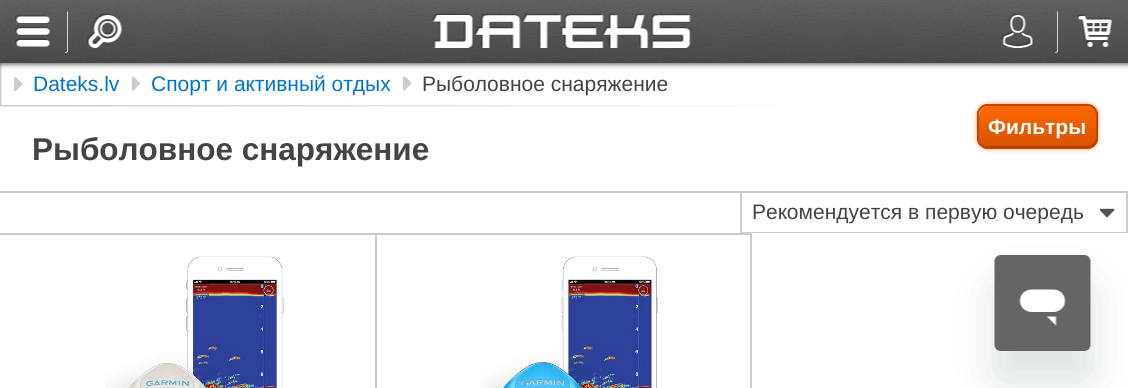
import math
import cairo

surface = cairo.ImageSurface(cairo.FORMAT_RGB24, 1128, 388)
ctx = cairo.Context(surface)
options = cairo.FontOptions()
options.set_hint_metrics(cairo.HINT_METRICS_OFF)
options.set_hint_style(cairo.HINT_STYLE_NONE)
ctx.set_font_options(options)
ctx.set_miter_limit(4)


def round_rect(x, y, w, h, r):
    ctx.new_sub_path()
    for i, (u, v) in enumerate([(x + w - r, y + h - r), (x + r, y + h - r), (x + r, y + r), (x + w - r, y + r)]):
        ctx.arc(u, v, r, i * math.pi / 2, (i + 1) * math.pi / 2)
    ctx.close_path()


def shadow(x, y, w, h, r, blur, alpha):
    ctx.push_group_with_content(cairo.CONTENT_ALPHA)
    ctx.set_operator(cairo.OPERATOR_SOURCE)
    for i in range(15, -16, -2):
        e = blur * i / 6
        if min(w, h) + 2 * e > 0:
            ctx.set_source_rgba(0, 0, 0, alpha * math.erfc((i - 1) / 8.5) / 2)
            round_rect(x - e, y - e, w + 2 * e, h + 2 * e, max(0, min(r + e + blur * .6, min(w, h) / 2 + e)))
            ctx.fill()
    ctx.mask(ctx.pop_group())


def picture(path, x, y, w, h):
    ctx.save()
    ctx.set_source_surface(cairo.ImageSurface.create_from_png(path), x, y)
    ctx.rectangle(x, y, w, h)
    ctx.fill()
    ctx.restore()


ctx.set_source_rgb(1, 1, 1)
ctx.paint()
picture("img1.png", 0, 63, 776, 44)
picture("img2.png", 14, 77, 9, 15)
ctx.select_font_face("Liberation Sans")
ctx.set_font_size(21)
ctx.set_source_rgb(0, 0.455, 0.8)
ctx.move_to(33, 91)
ctx.show_text("Dateks.lv")
picture("img3.png", 131, 76, 10, 15)
ctx.move_to(151, 91)
ctx.show_text("Спорт и активный отдых")
picture("img4.png", 403, 76, 9, 15)
ctx.set_source_rgb(0.267, 0.267, 0.267)
ctx.move_to(422, 91)
ctx.show_text("Рыболовное снаряжение")
ctx.set_source_rgb(0, 0, 0)
shadow(0, 2, 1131, 63, 0, 2, 0.5)
picture("img5.png", 0, 0, 1128, 63)
picture("img6.png", 15, 14, 35, 33)
ctx.set_source_rgba(1, 1, 1, 0.75)
ctx.new_path()
ctx.move_to(65, 52)
ctx.curve_to(65, 53, 67, 54, 68, 52)
ctx.line_to(68, 12)
ctx.line_to(67, 11)
ctx.line_to(67, 51)
ctx.line_to(66, 52)
ctx.close_path()
ctx.fill()
ctx.set_source_rgb(0.157, 0.157, 0.157)
ctx.set_fill_rule(cairo.FILL_RULE_EVEN_ODD)
ctx.new_path()
ctx.move_to(66, 11)
ctx.line_to(65, 12)
ctx.close_path()
ctx.move_to(65, 52)
ctx.line_to(66, 53)
ctx.close_path()
ctx.move_to(66, 53)
ctx.curve_to(67, 53, 68, 53, 68, 52)
ctx.close_path()
ctx.move_to(66, 11)
ctx.line_to(68, 12)
ctx.close_path()
ctx.fill()
picture("img7.png", 86, 13, 36, 35)
picture("img8.png", 432, 13, 259, 35)
picture("img9.png", 1001, 13, 32, 35)
ctx.set_source_rgba(1, 1, 1, 0.75)
ctx.set_fill_rule(cairo.FILL_RULE_WINDING)
ctx.new_path()
ctx.move_to(1055, 52)
ctx.curve_to(1055, 53, 1057, 54, 1058, 52)
ctx.line_to(1058, 12)
ctx.line_to(1057, 11)
ctx.line_to(1057, 51)
ctx.line_to(1056, 52)
ctx.close_path()
ctx.fill()
ctx.set_source_rgb(0.153, 0.153, 0.153)
ctx.set_fill_rule(cairo.FILL_RULE_EVEN_ODD)
ctx.new_path()
ctx.move_to(1056, 11)
ctx.line_to(1055, 12)
ctx.close_path()
ctx.move_to(1055, 52)
ctx.line_to(1056, 53)
ctx.close_path()
ctx.move_to(1056, 53)
ctx.curve_to(1057, 53, 1058, 53, 1058, 52)
ctx.close_path()
ctx.move_to(1056, 11)
ctx.line_to(1058, 12)
ctx.close_path()
ctx.fill()
picture("img10.png", 1076, 14, 36, 33)
ctx.set_source_rgb(1, 0.4, 0)
shadow(977, 104, 121, 45, 11, 2, 0.73)
ctx.set_source_rgb(0.922, 0.365, 0)
round_rect(977, 104, 121, 45, 11)
ctx.fill()
ctx.save()
ctx.set_fill_rule(cairo.FILL_RULE_WINDING)
round_rect(977, 104, 121, 45, 11)
ctx.clip()
gradient = cairo.LinearGradient(1037, 105, 1037, 147)
gradient.add_color_stop_rgba(0, 1, 0.412, 0, 0.93)
gradient.add_color_stop_rgba(1, 0.839, 0.318, 0, 0.93)
ctx.set_source(gradient)
ctx.rectangle(977, 105, 121, 42)
ctx.fill()
ctx.restore()
ctx.set_source_rgba(0, 0, 0, 0.25)
ctx.set_fill_rule(cairo.FILL_RULE_WINDING)
ctx.new_path()
ctx.move_to(980, 144)
ctx.curve_to(982, 146, 984, 147, 987, 147)
ctx.line_to(1088, 147)
ctx.curve_to(1093, 147, 1097, 143, 1097, 138)
ctx.line_to(1097, 114)
ctx.curve_to(1097, 111, 1096, 109, 1094, 107)
ctx.curve_to(1095, 109, 1096, 111, 1096, 113)
ctx.line_to(1096, 137)
ctx.curve_to(1096, 142, 1092, 146, 1087, 146)
ctx.line_to(986, 146)
ctx.curve_to(984, 146, 982, 145, 980, 144)
ctx.close_path()
ctx.fill()
ctx.set_source_rgb(1, 1, 1)
ctx.new_path()
ctx.move_to(988, 106)
ctx.line_to(1088, 106)
ctx.curve_to(1093, 106, 1097, 110, 1097, 115)
ctx.line_to(1097, 114)
ctx.curve_to(1097, 109, 1093, 105, 1088, 105)
ctx.line_to(987, 105)
ctx.curve_to(982, 105, 978, 109, 978, 114)
ctx.line_to(978, 138)
ctx.curve_to(978, 141, 979, 143, 981, 145)
ctx.curve_to(977, 140, 979, 132, 979, 127)
ctx.curve_to(979, 120, 977, 106, 988, 106)
ctx.close_path()
ctx.fill()
round_rect(978, 105, 119, 43, 10)
ctx.set_source_rgb(0.761, 0.267, 0)
ctx.stroke()
ctx.select_font_face("Liberation Sans", cairo.FONT_SLANT_NORMAL, cairo.FONT_WEIGHT_BOLD)
ctx.set_source_rgb(1, 1, 1)
ctx.move_to(988, 134)
ctx.show_text("Фильтры")
ctx.set_font_size(31.5)
ctx.set_source_rgb(0.267, 0.267, 0.267)
ctx.move_to(32, 160)
ctx.show_text("Рыболовное снаряжение")
ctx.set_source_rgb(0.8, 0.8, 0.8)
ctx.rectangle(0, 191, 1128, 2)
ctx.fill()
ctx.save()
ctx.rectangle(0, 192, 1128, 41)
ctx.clip()
ctx.rectangle(741, 192, 386, 41)
ctx.stroke()
ctx.restore()
ctx.select_font_face("Liberation Sans")
ctx.set_font_size(21)
ctx.set_source_rgb(0.267, 0.267, 0.267)
ctx.move_to(752, 219)
ctx.show_text("Рекомендуется в первую очередь")
picture("img11.png", 1100, 208, 15, 10)
ctx.set_source_rgb(0.8, 0.8, 0.8)
ctx.rectangle(0, 233, 752, 2)
ctx.fill()
ctx.rectangle(375, 233, 2, 155)
ctx.fill()
picture("img12.png", 105, 256, 179, 132)
ctx.rectangle(750, 233, 2, 155)
ctx.fill()
picture("img13.png", 480, 256, 181, 132)
ctx.set_source_rgb(0.09, 0.286, 0.302)
shadow(995, 285, 96, 96, 6, 22.5, 0.15)
picture("img14.png", 994, 255, 97, 96)
surface.write_to_png("page.png")
